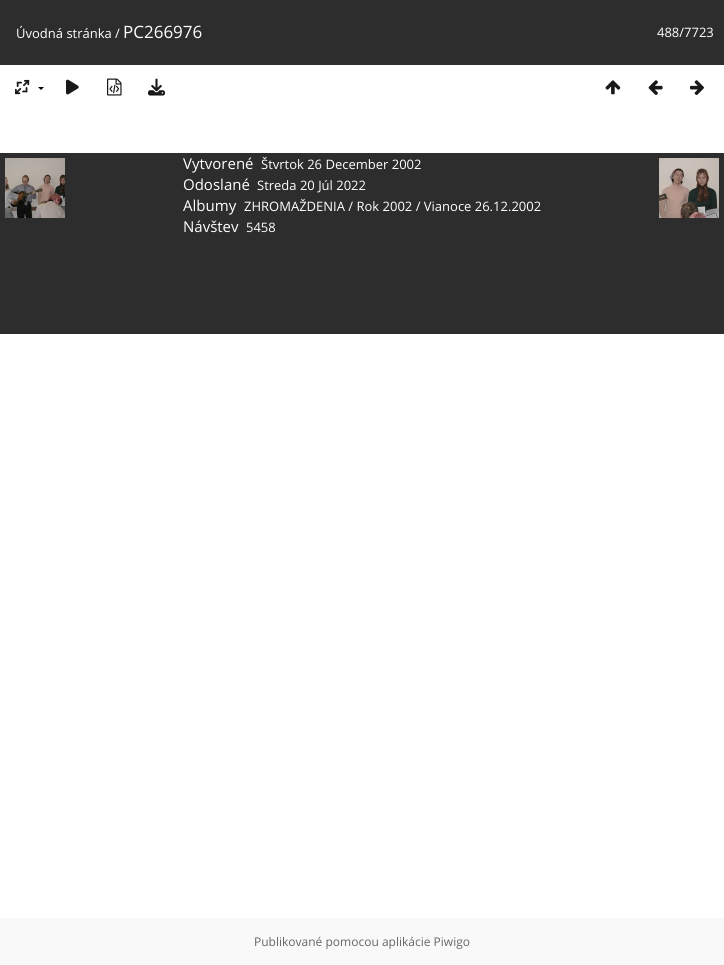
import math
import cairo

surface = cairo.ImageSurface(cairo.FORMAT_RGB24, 724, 965)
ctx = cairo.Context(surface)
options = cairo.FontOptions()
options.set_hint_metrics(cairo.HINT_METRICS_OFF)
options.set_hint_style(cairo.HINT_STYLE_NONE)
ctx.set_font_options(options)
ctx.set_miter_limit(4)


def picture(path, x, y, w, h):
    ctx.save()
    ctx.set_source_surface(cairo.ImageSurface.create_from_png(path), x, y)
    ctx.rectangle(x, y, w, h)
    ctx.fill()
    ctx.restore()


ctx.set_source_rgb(1, 1, 1)
ctx.paint()
ctx.set_source_rgb(0.176, 0.176, 0.176)
ctx.rectangle(0, 0, 724, 65)
ctx.fill()
ctx.select_font_face("Open Sans")
ctx.set_font_size(13)
ctx.set_source_rgb(1, 1, 1)
ctx.move_to(16, 38)
ctx.show_text("Úvodná stránka /")
ctx.set_font_size(17)
ctx.move_to(123, 38)
ctx.show_text("PC266976")
ctx.set_font_size(13)
ctx.move_to(657, 37)
ctx.show_text("488/7723")
picture("img1.png", 15, 79, 15, 16)
ctx.set_source_rgb(0, 0, 0)
ctx.new_path()
ctx.move_to(38, 87)
ctx.line_to(44, 87)
ctx.line_to(41, 90)
ctx.close_path()
ctx.fill()
picture("img2.png", 66, 79, 13, 16)
picture("img3.png", 107, 78, 15, 18)
picture("img4.png", 148, 78, 17, 18)
picture("img5.png", 605, 80, 16, 15)
picture("img6.png", 648, 80, 15, 15)
picture("img7.png", 690, 80, 14, 15)
ctx.set_source_rgb(0.176, 0.176, 0.176)
ctx.rectangle(0, 153, 724, 181)
ctx.fill()
ctx.set_font_size(15)
ctx.set_source_rgb(1, 1, 1)
ctx.move_to(183, 169)
ctx.show_text("Vytvorené")
ctx.set_font_size(13)
ctx.move_to(261, 169)
ctx.show_text("Štvrtok 26 December 2002")
ctx.set_font_size(15)
ctx.move_to(183, 190)
ctx.show_text("Odoslané")
ctx.set_font_size(13)
ctx.move_to(257, 190)
ctx.show_text("Streda 20 Júl 2022")
ctx.set_font_size(15)
ctx.move_to(183, 211)
ctx.show_text("Albumy")
ctx.set_font_size(13)
ctx.move_to(244, 211)
ctx.show_text("ZHROMAŽDENIA / Rok 2002 / Vianoce 26.12.2002")
ctx.set_font_size(15)
ctx.move_to(183, 232)
ctx.show_text("Návštev")
ctx.set_font_size(13)
ctx.move_to(246, 232)
ctx.show_text("5458")
picture("img8.png", 5, 158, 60, 60)
picture("img9.png", 659, 158, 60, 60)
ctx.set_source_rgb(0.976, 0.976, 0.976)
ctx.rectangle(0, 918, 724, 47)
ctx.fill()
ctx.set_font_size(12)
ctx.set_source_rgb(0.4, 0.4, 0.4)
ctx.move_to(254, 946)
ctx.show_text("Publikované pomocou aplikácie Piwigo")
surface.write_to_png("page.png")
